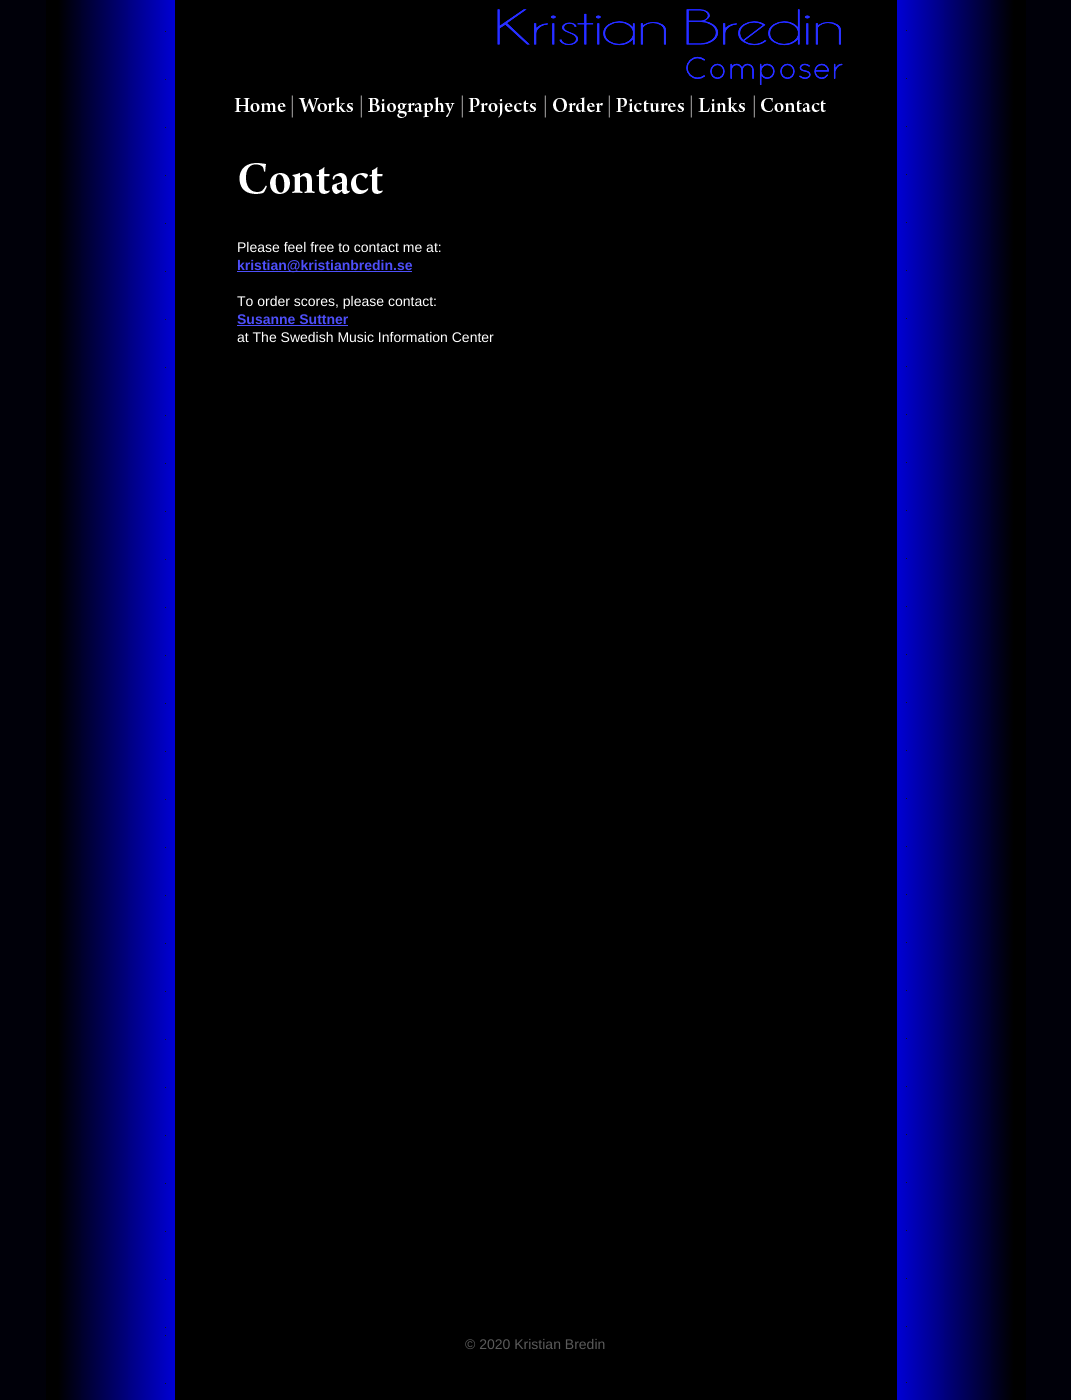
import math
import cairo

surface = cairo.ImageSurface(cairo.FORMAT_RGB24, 1071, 1400)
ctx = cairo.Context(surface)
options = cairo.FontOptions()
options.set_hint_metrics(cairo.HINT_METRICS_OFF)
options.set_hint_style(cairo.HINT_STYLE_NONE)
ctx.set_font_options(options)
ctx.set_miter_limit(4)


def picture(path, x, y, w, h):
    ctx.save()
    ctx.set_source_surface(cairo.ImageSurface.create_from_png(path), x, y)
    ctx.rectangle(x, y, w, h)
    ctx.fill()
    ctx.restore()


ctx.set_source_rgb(0, 0, 0.039)
ctx.paint()
picture("img1.png", 46, 0, 980, 1335)
picture("img2.png", 497, 9, 346, 77)
picture("img3.png", 234, 98, 52, 14)
picture("img4.png", 291, 95, 2, 23)
picture("img5.png", 298, 97, 55, 15)
picture("img4.png", 360, 95, 2, 23)
picture("img6.png", 368, 97, 87, 21)
picture("img4.png", 461, 95, 2, 23)
picture("img7.png", 468, 98, 68, 20)
picture("img4.png", 544, 95, 2, 23)
picture("img8.png", 553, 97, 50, 15)
picture("img4.png", 608, 95, 2, 23)
picture("img9.png", 616, 98, 68, 14)
picture("img4.png", 690, 95, 2, 23)
picture("img10.png", 698, 97, 47, 15)
picture("img4.png", 753, 95, 2, 23)
picture("img11.png", 760, 85, 66, 27)
picture("img12.png", 239, 163, 144, 31)
ctx.select_font_face("Liberation Sans")
ctx.set_font_size(14)
ctx.set_source_rgb(1, 1, 1)
ctx.move_to(237, 252)
ctx.show_text("Please feel free to contact me at:")
ctx.set_source_rgb(0.306, 0.31, 0.98)
ctx.rectangle(237, 271, 175, 1)
ctx.fill()
ctx.select_font_face("Liberation Sans", cairo.FONT_SLANT_NORMAL, cairo.FONT_WEIGHT_BOLD)
ctx.move_to(237, 270)
ctx.show_text("kristian@kristianbredin.se")
ctx.select_font_face("Liberation Sans")
ctx.set_source_rgb(1, 1, 1)
ctx.move_to(237, 306)
ctx.show_text("To order scores, please contact:")
ctx.select_font_face("Liberation Sans", cairo.FONT_SLANT_NORMAL, cairo.FONT_WEIGHT_BOLD)
ctx.set_source_rgb(0.306, 0.31, 0.98)
ctx.move_to(237, 324)
ctx.show_text("Susanne Suttner")
ctx.rectangle(237, 325, 111, 1)
ctx.fill()
ctx.select_font_face("Liberation Sans")
ctx.set_source_rgb(1, 1, 1)
ctx.move_to(237, 342)
ctx.show_text("at The Swedish Music Information Center")
picture("img13.png", 46, 1335, 980, 65)
ctx.set_source_rgb(0.357, 0.357, 0.357)
ctx.move_to(465, 1349)
ctx.show_text("© 2020 Kristian Bredin")
surface.write_to_png("page.png")
